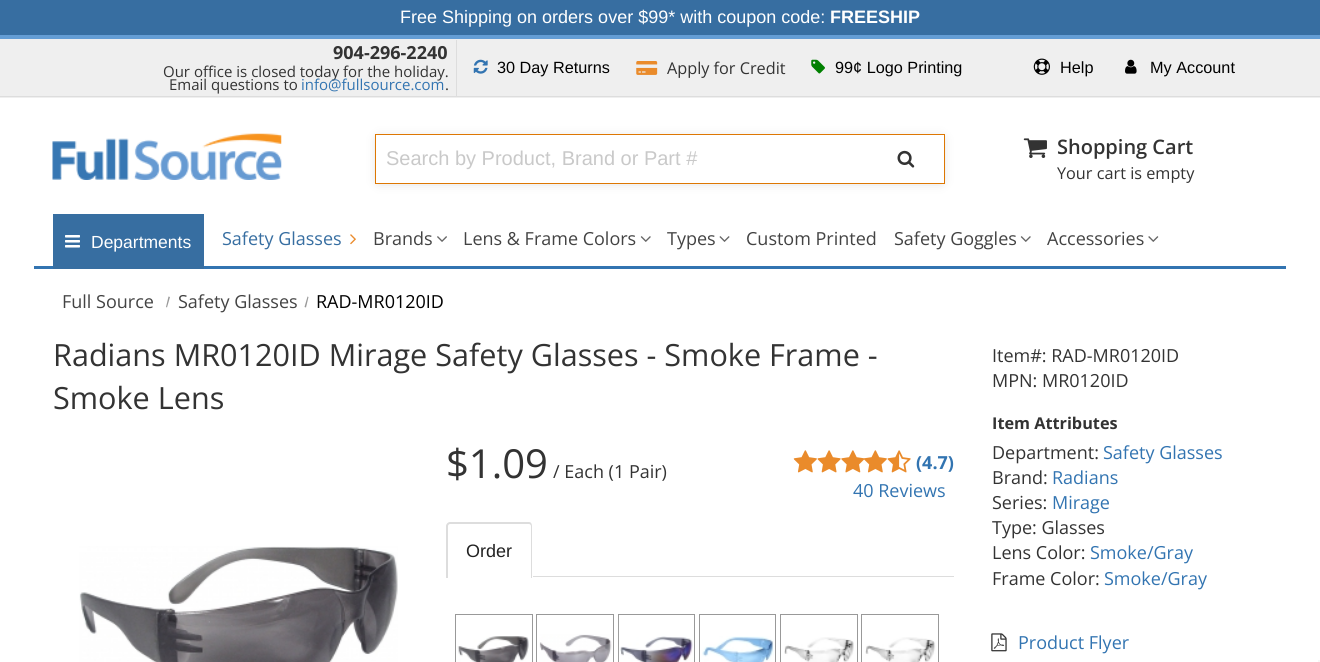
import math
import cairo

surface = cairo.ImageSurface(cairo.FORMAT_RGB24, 1320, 662)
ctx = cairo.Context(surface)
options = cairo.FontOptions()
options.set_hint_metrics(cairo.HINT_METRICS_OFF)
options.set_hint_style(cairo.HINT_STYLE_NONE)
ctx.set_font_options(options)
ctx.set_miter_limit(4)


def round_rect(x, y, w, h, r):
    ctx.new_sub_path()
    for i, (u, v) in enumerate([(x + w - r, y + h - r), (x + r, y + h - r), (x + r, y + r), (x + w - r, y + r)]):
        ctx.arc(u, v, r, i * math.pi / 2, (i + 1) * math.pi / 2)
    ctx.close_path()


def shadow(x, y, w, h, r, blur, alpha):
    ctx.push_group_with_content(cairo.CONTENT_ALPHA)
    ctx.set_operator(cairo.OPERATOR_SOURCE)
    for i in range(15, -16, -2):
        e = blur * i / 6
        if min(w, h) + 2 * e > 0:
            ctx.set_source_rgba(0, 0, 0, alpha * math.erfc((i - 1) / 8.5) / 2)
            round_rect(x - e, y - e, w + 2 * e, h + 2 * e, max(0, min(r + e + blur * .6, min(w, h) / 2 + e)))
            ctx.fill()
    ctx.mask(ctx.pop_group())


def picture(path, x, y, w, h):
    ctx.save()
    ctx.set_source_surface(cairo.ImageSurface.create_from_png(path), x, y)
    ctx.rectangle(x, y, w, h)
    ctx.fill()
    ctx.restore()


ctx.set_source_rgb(1, 1, 1)
ctx.paint()
ctx.set_source_rgb(0.216, 0.431, 0.631)
ctx.rectangle(0, 0, 1320, 35)
ctx.fill()
ctx.select_font_face("Liberation Sans")
ctx.set_font_size(18)
ctx.set_source_rgb(1, 1, 1)
ctx.move_to(400, 23)
ctx.show_text("Free Shipping on orders over $99* with coupon code:")
ctx.select_font_face("Liberation Sans", cairo.FONT_SLANT_NORMAL, cairo.FONT_WEIGHT_BOLD)
ctx.move_to(830, 23)
ctx.show_text("FREESHIP")
ctx.set_source_rgb(0.937, 0.937, 0.937)
ctx.rectangle(0, 39, 1320, 59)
ctx.fill()
ctx.set_source_rgb(0.392, 0.616, 0.831)
ctx.rectangle(0, 35, 1320, 4)
ctx.fill()
ctx.set_source_rgb(0.867, 0.867, 0.867)
ctx.rectangle(0, 96, 1320, 1)
ctx.fill()
ctx.rectangle(456, 40, 1, 56)
ctx.fill()
ctx.select_font_face("Open Sans", cairo.FONT_SLANT_NORMAL, cairo.FONT_WEIGHT_BOLD)
ctx.set_source_rgb(0.2, 0.2, 0.2)
ctx.move_to(333, 59)
ctx.show_text("904-296-2240")
ctx.select_font_face("Open Sans")
ctx.set_font_size(15)
ctx.move_to(163, 77)
ctx.show_text("Our office is closed today for the holiday.")
ctx.move_to(169, 90)
ctx.show_text("Email questions to")
ctx.set_source_rgb(0.196, 0.455, 0.694)
ctx.move_to(301, 90)
ctx.show_text("info@fullsource.com")
ctx.set_source_rgb(0.2, 0.2, 0.2)
ctx.move_to(445, 90)
ctx.show_text(".")
picture("img1.png", 473, 59, 15, 15)
ctx.select_font_face("Liberation Sans")
ctx.set_font_size(16.25)
ctx.set_source_rgb(0, 0, 0)
ctx.move_to(497, 73)
ctx.show_text("30 Day Returns")
picture("img2.png", 636, 61, 22, 14)
ctx.select_font_face("Open Sans")
ctx.set_source_rgb(0.2, 0.2, 0.2)
ctx.move_to(667, 74)
ctx.show_text("Apply for Credit")
picture("img3.png", 811, 59, 14, 15)
ctx.select_font_face("Liberation Sans")
ctx.set_source_rgb(0, 0, 0)
ctx.move_to(835, 73)
ctx.show_text("99¢ Logo Printing")
picture("img4.png", 1033, 58, 17, 17)
ctx.move_to(1060, 73)
ctx.show_text("Help")
picture("img5.png", 1125, 59, 12, 15)
ctx.move_to(1150, 73)
ctx.show_text("My Account")
picture("img6.png", 52, 133, 230, 47)
ctx.save()
ctx.set_fill_rule(cairo.FILL_RULE_EVEN_ODD)
ctx.new_path()
ctx.move_to(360, 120)
ctx.line_to(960, 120)
ctx.line_to(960, 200)
ctx.line_to(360, 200)
ctx.close_path()
ctx.move_to(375, 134)
ctx.line_to(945, 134)
ctx.line_to(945, 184)
ctx.line_to(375, 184)
ctx.close_path()
ctx.clip()
ctx.set_source_rgb(0.8, 0.8, 0.8)
shadow(379, 139, 562, 42, 0, 6, 1)
ctx.restore()
ctx.rectangle(375.5, 134.5, 569, 49)
ctx.set_source_rgb(0.867, 0.467, 0.012)
ctx.set_line_width(1)
ctx.stroke()
ctx.set_font_size(20)
ctx.set_source_rgb(0.788, 0.788, 0.788)
ctx.move_to(386, 165)
ctx.show_text("Search by Product, Brand or Part #")
picture("img7.png", 897, 150, 18, 18)
picture("img8.png", 1023, 138, 24, 20)
ctx.select_font_face("Open Sans SemiBold")
ctx.set_source_rgb(0.2, 0.2, 0.2)
ctx.move_to(1057, 154)
ctx.show_text("Shopping Cart")
ctx.select_font_face("Open Sans")
ctx.set_font_size(16.25)
ctx.move_to(1057, 179)
ctx.show_text("Your cart is empty")
ctx.set_source_rgb(0.196, 0.455, 0.694)
ctx.rectangle(34, 266, 1252, 3)
ctx.fill()
ctx.set_source_rgb(0.216, 0.431, 0.631)
ctx.rectangle(53, 214, 151, 55)
ctx.fill()
picture("img9.png", 65, 235, 15, 13)
ctx.select_font_face("Liberation Sans")
ctx.set_font_size(17.5)
ctx.set_source_rgb(1, 1, 1)
ctx.move_to(91, 248)
ctx.show_text("Departments")
ctx.select_font_face("Open Sans")
ctx.set_font_size(18)
ctx.set_source_rgb(0.216, 0.431, 0.631)
ctx.move_to(222, 245)
ctx.show_text("Safety Glasses")
picture("img10.png", 350, 234, 6, 11)
ctx.set_source_rgb(0.263, 0.263, 0.263)
ctx.move_to(373, 245)
ctx.show_text("Brands")
picture("img11.png", 437, 236, 10, 6)
ctx.move_to(463, 245)
ctx.show_text("Lens & Frame Colors")
picture("img12.png", 640, 236, 11, 6)
ctx.move_to(667, 245)
ctx.show_text("Types")
picture("img13.png", 719, 236, 11, 6)
ctx.move_to(746, 245)
ctx.show_text("Custom Printed")
ctx.move_to(894, 245)
ctx.show_text("Safety Goggles")
picture("img12.png", 1020, 236, 11, 6)
ctx.move_to(1047, 245)
ctx.show_text("Accessories")
picture("img14.png", 1148, 236, 11, 6)
ctx.move_to(62, 308)
ctx.show_text("Full Source")
ctx.set_source_rgb(0.6, 0.6, 0.6)
ctx.new_path()
ctx.move_to(168.5, 296.5)
ctx.line_to(170, 297)
ctx.line_to(167, 307.5)
ctx.line_to(166, 307)
ctx.close_path()
ctx.fill()
ctx.set_source_rgb(0.263, 0.263, 0.263)
ctx.move_to(178, 308)
ctx.show_text("Safety Glasses")
ctx.set_source_rgb(0.6, 0.6, 0.6)
ctx.new_path()
ctx.move_to(307.5, 296.5)
ctx.line_to(308.5, 297)
ctx.line_to(306, 307.5)
ctx.line_to(304.5, 307)
ctx.close_path()
ctx.fill()
ctx.set_source_rgb(0, 0, 0)
ctx.move_to(316, 308)
ctx.show_text("RAD-MR0120ID")
ctx.set_font_size(30.6)
ctx.set_source_rgb(0.2, 0.2, 0.2)
ctx.move_to(53, 366)
ctx.show_text("Radians MR0120ID Mirage Safety Glasses - Smoke Frame -")
ctx.move_to(53, 409)
ctx.show_text("Smoke Lens")
ctx.set_font_size(40)
ctx.move_to(446, 478)
ctx.show_text("$1.09")
ctx.set_font_size(18)
ctx.move_to(553, 478)
ctx.show_text("/ Each (1 Pair)")
picture("img15.png", 793, 450, 24, 23)
picture("img16.png", 817, 450, 24, 23)
picture("img17.png", 841, 450, 24, 23)
picture("img18.png", 864, 450, 23, 23)
picture("img19.png", 887, 450, 24, 23)
ctx.select_font_face("Open Sans", cairo.FONT_SLANT_NORMAL, cairo.FONT_WEIGHT_BOLD)
ctx.set_source_rgb(0.196, 0.455, 0.694)
ctx.move_to(916, 469)
ctx.show_text("(4.7)")
ctx.select_font_face("Open Sans")
ctx.move_to(853, 497)
ctx.show_text("40 Reviews")
ctx.set_source_rgb(0.867, 0.867, 0.867)
ctx.rectangle(533, 576, 421, 1)
ctx.fill()
ctx.set_fill_rule(cairo.FILL_RULE_EVEN_ODD)
ctx.new_path()
ctx.move_to(450, 522)
ctx.line_to(529, 522)
ctx.curve_to(531, 522, 532, 524, 532, 526)
ctx.line_to(532, 578)
ctx.line_to(446, 578)
ctx.line_to(446, 526)
ctx.curve_to(446, 524, 448, 522, 450, 522)
ctx.close_path()
ctx.move_to(450, 524)
ctx.line_to(529, 524)
ctx.curve_to(530, 524, 531, 525, 531, 526)
ctx.line_to(531, 578)
ctx.line_to(448, 578)
ctx.line_to(448, 526)
ctx.curve_to(448, 525, 449, 524, 450, 524)
ctx.close_path()
ctx.fill()
ctx.select_font_face("Liberation Sans")
ctx.set_source_rgb(0.133, 0.133, 0.133)
ctx.move_to(466, 557)
ctx.show_text("Order")
ctx.rectangle(455.5, 614.5, 77, 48)
ctx.set_source_rgb(0.6, 0.6, 0.6)
ctx.stroke()
picture("img20.png", 457, 636, 72, 26)
ctx.rectangle(536.5, 614.5, 77, 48)
ctx.stroke()
picture("img21.png", 539, 634, 73, 28)
ctx.rectangle(618.5, 614.5, 76, 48)
ctx.stroke()
picture("img22.png", 618, 615, 75, 47)
ctx.rectangle(699.5, 614.5, 76, 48)
ctx.stroke()
picture("img23.png", 702, 636, 72, 26)
ctx.rectangle(780.5, 614.5, 77, 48)
ctx.stroke()
picture("img24.png", 784, 637, 70, 25)
ctx.rectangle(861.5, 614.5, 77, 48)
ctx.stroke()
picture("img25.png", 865, 637, 71, 25)
picture("img26.png", 79, 546, 319, 116)
ctx.select_font_face("Open Sans")
ctx.set_source_rgb(0.2, 0.2, 0.2)
ctx.move_to(992, 362)
ctx.show_text("Item#: RAD-MR0120ID")
ctx.move_to(992, 387)
ctx.show_text("MPN: MR0120ID")
ctx.select_font_face("Open Sans", cairo.FONT_SLANT_NORMAL, cairo.FONT_WEIGHT_BOLD)
ctx.set_font_size(16.25)
ctx.move_to(992, 429)
ctx.show_text("Item Attributes")
ctx.select_font_face("Open Sans")
ctx.set_font_size(18)
ctx.move_to(992, 459)
ctx.show_text("Department:")
ctx.set_source_rgb(0.196, 0.455, 0.694)
ctx.move_to(1103, 459)
ctx.show_text("Safety Glasses")
ctx.set_source_rgb(0.2, 0.2, 0.2)
ctx.move_to(992, 484)
ctx.show_text("Brand:")
ctx.set_source_rgb(0.196, 0.455, 0.694)
ctx.move_to(1052, 484)
ctx.show_text("Radians")
ctx.set_source_rgb(0.2, 0.2, 0.2)
ctx.move_to(992, 509)
ctx.show_text("Series:")
ctx.set_source_rgb(0.196, 0.455, 0.694)
ctx.move_to(1052, 509)
ctx.show_text("Mirage")
ctx.set_source_rgb(0.2, 0.2, 0.2)
ctx.move_to(992, 534)
ctx.show_text("Type: Glasses")
ctx.move_to(992, 559)
ctx.show_text("Lens Color:")
ctx.set_source_rgb(0.196, 0.455, 0.694)
ctx.move_to(1090, 559)
ctx.show_text("Smoke/Gray")
ctx.set_source_rgb(0.2, 0.2, 0.2)
ctx.move_to(992, 585)
ctx.show_text("Frame Color:")
ctx.set_source_rgb(0.196, 0.455, 0.694)
ctx.move_to(1104, 585)
ctx.show_text("Smoke/Gray")
picture("img27.png", 991, 633, 16, 19)
ctx.move_to(1018, 649)
ctx.show_text("Product Flyer")
ctx.set_source_rgb(0.961, 0.961, 0.961)
ctx.rectangle(1318, 660, 2, 2)
ctx.fill()
surface.write_to_png("page.png")
